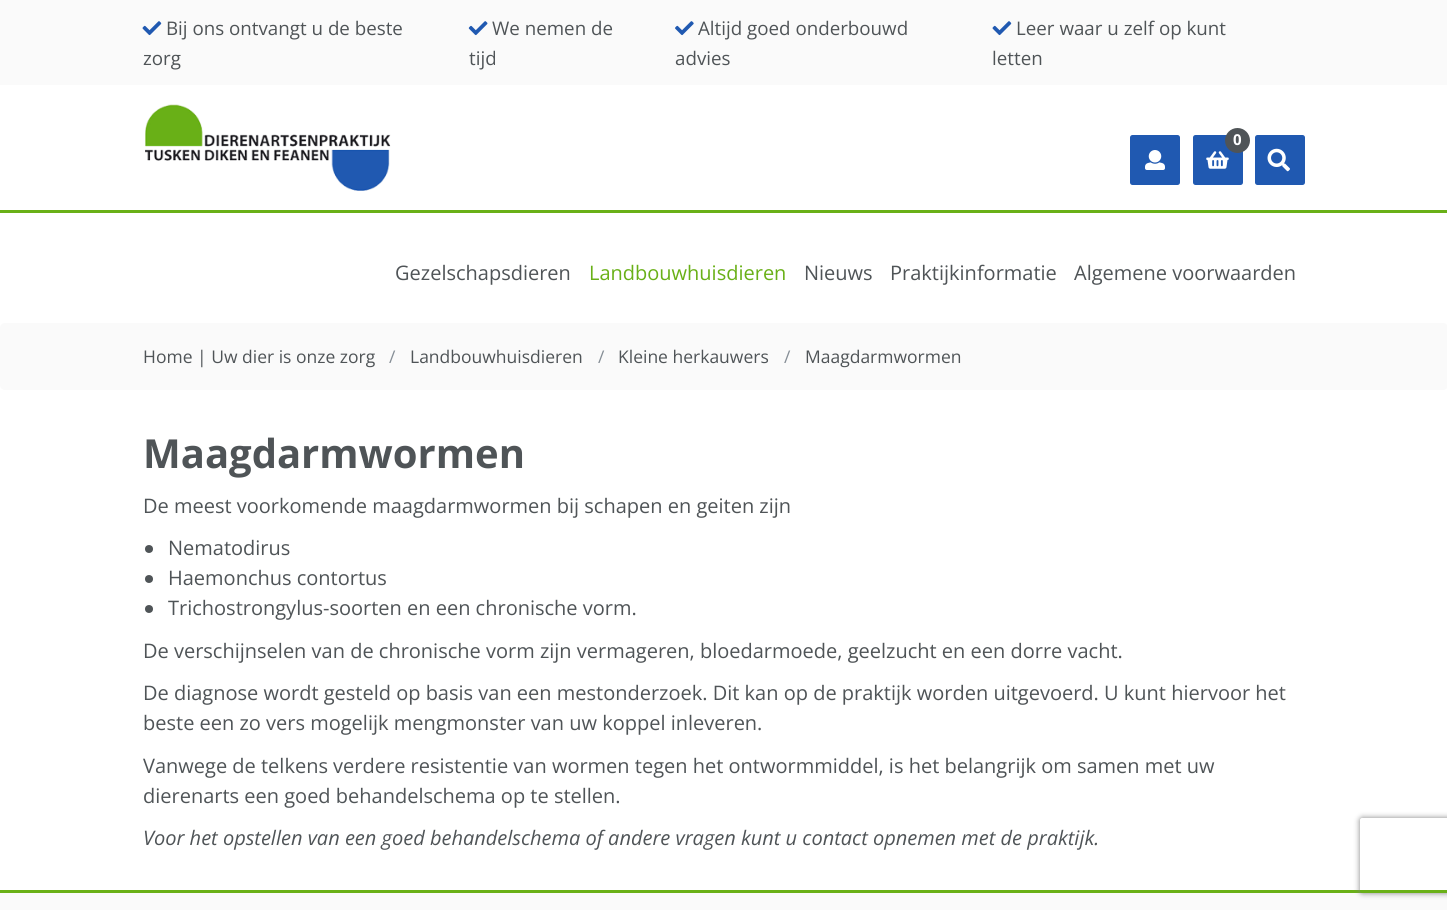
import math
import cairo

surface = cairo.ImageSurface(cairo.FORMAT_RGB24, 1447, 910)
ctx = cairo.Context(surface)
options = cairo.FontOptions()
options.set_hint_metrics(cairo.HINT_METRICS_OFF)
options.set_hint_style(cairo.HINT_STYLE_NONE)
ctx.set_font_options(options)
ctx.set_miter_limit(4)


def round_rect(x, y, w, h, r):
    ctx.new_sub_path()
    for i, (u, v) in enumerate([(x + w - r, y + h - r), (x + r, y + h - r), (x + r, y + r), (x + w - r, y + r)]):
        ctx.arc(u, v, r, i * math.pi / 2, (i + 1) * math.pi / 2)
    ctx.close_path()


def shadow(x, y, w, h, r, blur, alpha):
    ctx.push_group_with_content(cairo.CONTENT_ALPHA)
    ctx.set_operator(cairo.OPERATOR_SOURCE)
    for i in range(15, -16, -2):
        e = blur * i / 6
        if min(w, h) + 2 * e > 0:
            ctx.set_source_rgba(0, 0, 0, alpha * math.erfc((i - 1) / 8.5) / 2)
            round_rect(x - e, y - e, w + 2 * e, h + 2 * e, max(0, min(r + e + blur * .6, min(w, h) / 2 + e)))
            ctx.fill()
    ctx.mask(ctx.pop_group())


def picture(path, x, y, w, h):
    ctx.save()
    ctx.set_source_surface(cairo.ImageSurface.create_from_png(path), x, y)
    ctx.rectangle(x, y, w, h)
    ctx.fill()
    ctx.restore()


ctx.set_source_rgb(1, 1, 1)
ctx.paint()
ctx.set_source_rgb(0.98, 0.98, 0.98)
ctx.rectangle(0, 0, 1447, 85)
ctx.fill()
picture("img1.png", 142, 21, 20, 15)
ctx.select_font_face("Open Sans")
ctx.set_font_size(18.75)
ctx.set_source_rgb(0.31, 0.329, 0.341)
ctx.move_to(166, 35)
ctx.show_text("Bij ons ontvangt u de beste")
ctx.move_to(143, 65)
ctx.show_text("zorg")
picture("img2.png", 468, 21, 20, 15)
ctx.move_to(492, 35)
ctx.show_text("We nemen de")
ctx.move_to(469, 65)
ctx.show_text("tijd")
picture("img3.png", 675, 21, 19, 15)
ctx.move_to(698, 35)
ctx.show_text("Altijd goed onderbouwd")
ctx.move_to(675, 65)
ctx.show_text("advies")
picture("img1.png", 992, 21, 20, 15)
ctx.move_to(1016, 35)
ctx.show_text("Leer waar u zelf op kunt")
ctx.move_to(992, 65)
ctx.show_text("letten")
ctx.set_source_rgb(0.412, 0.69, 0.09)
ctx.rectangle(0, 210, 1447, 3)
ctx.fill()
picture("img4.png", 145, 104, 246, 87)
ctx.set_source_rgb(0.125, 0.349, 0.694)
round_rect(1130, 135, 50, 50, 2.5)
ctx.fill()
picture("img5.png", 1145, 150, 20, 20)
round_rect(1193, 135, 50, 50, 2.5)
ctx.fill()
picture("img6.png", 1206, 151, 23, 18)
ctx.set_source_rgb(0.31, 0.329, 0.341)
ctx.arc(1237.5, 140.5, 12.5, 0, 2 * math.pi)
ctx.fill()
ctx.select_font_face("Open Sans", cairo.FONT_SLANT_NORMAL, cairo.FONT_WEIGHT_BOLD)
ctx.set_font_size(15)
ctx.set_source_rgb(1, 1, 1)
ctx.move_to(1233, 145)
ctx.show_text("0")
ctx.set_source_rgb(0.125, 0.349, 0.694)
round_rect(1255, 135, 50, 50, 2.5)
ctx.fill()
picture("img7.png", 1267, 148, 23, 24)
ctx.select_font_face("Open Sans")
ctx.set_font_size(20)
ctx.set_source_rgb(0.31, 0.329, 0.341)
ctx.move_to(395, 280)
ctx.show_text("Gezelschapsdieren")
ctx.set_source_rgb(0.412, 0.69, 0.09)
ctx.move_to(589, 280)
ctx.show_text("Landbouwhuisdieren")
ctx.set_source_rgb(0.31, 0.329, 0.341)
ctx.move_to(804, 280)
ctx.show_text("Nieuws")
ctx.move_to(890, 280)
ctx.show_text("Praktijkinformatie")
ctx.move_to(1074, 280)
ctx.show_text("Algemene voorwaarden")
ctx.set_source_rgb(0.98, 0.98, 0.98)
round_rect(0, 323, 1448, 67, 5)
ctx.fill()
ctx.set_font_size(17.5)
ctx.set_source_rgb(0.31, 0.329, 0.341)
ctx.move_to(143, 363)
ctx.show_text("Home | Uw dier is onze zorg")
ctx.set_source_rgb(0.525, 0.557, 0.588)
ctx.move_to(389, 363)
ctx.show_text("/")
ctx.set_source_rgb(0.31, 0.329, 0.341)
ctx.move_to(410, 363)
ctx.show_text("Landbouwhuisdieren")
ctx.set_source_rgb(0.525, 0.557, 0.588)
ctx.move_to(598, 363)
ctx.show_text("/")
ctx.set_source_rgb(0.31, 0.329, 0.341)
ctx.move_to(618, 363)
ctx.show_text("Kleine herkauwers")
ctx.set_source_rgb(0.525, 0.557, 0.588)
ctx.move_to(784, 363)
ctx.show_text("/")
ctx.set_source_rgb(0.31, 0.329, 0.341)
ctx.move_to(805, 363)
ctx.show_text("Maagdarmwormen")
ctx.select_font_face("Open Sans", cairo.FONT_SLANT_NORMAL, cairo.FONT_WEIGHT_BOLD)
ctx.set_font_size(40)
ctx.move_to(143, 468)
ctx.show_text("Maagdarmwormen")
ctx.select_font_face("Open Sans")
ctx.set_font_size(20)
ctx.move_to(143, 513)
ctx.show_text("De meest voorkomende maagdarmwormen bij schapen en geiten zijn")
ctx.new_path()
ctx.arc(149, 549, 4, 0, 2 * math.pi)
ctx.fill()
ctx.move_to(168, 555)
ctx.show_text("Nematodirus")
ctx.new_path()
ctx.arc(149, 579, 4, 0, 2 * math.pi)
ctx.fill()
ctx.move_to(168, 585)
ctx.show_text("Haemonchus contortus")
ctx.new_path()
ctx.arc(149, 609, 4, 0, 2 * math.pi)
ctx.fill()
ctx.move_to(168, 615)
ctx.show_text("Trichostrongylus-soorten en een chronische vorm.")
ctx.move_to(143, 658)
ctx.show_text("De verschijnselen van de chronische vorm zijn vermageren, bloedarmoede, geelzucht en een dorre vacht.")
ctx.move_to(143, 700)
ctx.show_text("De diagnose wordt gesteld op basis van een mestonderzoek. Dit kan op de praktijk worden uitgevoerd. U kunt hiervoor het")
ctx.move_to(143, 730)
ctx.show_text("beste een zo vers mogelijk mengmonster van uw koppel inleveren.")
ctx.move_to(143, 773)
ctx.show_text("Vanwege de telkens verdere resistentie van wormen tegen het ontwormmiddel, is het belangrijk om samen met uw")
ctx.move_to(143, 803)
ctx.show_text("dierenarts een goed behandelschema op te stellen.")
ctx.select_font_face("Open Sans", cairo.FONT_SLANT_ITALIC)
ctx.move_to(143, 845)
ctx.show_text("Voor het opstellen van een goed behandelschema of andere vragen kunt u contact opnemen met de praktijk.")
ctx.set_source_rgb(0.412, 0.69, 0.09)
ctx.rectangle(0, 890, 1447, 3)
ctx.fill()
ctx.set_source_rgb(0.98, 0.98, 0.98)
ctx.rectangle(0, 893, 1447, 17)
ctx.fill()
ctx.save()
ctx.set_fill_rule(cairo.FILL_RULE_EVEN_ODD)
ctx.new_path()
ctx.move_to(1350, 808)
ctx.line_to(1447, 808)
ctx.line_to(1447, 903)
ctx.line_to(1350, 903)
ctx.close_path()
ctx.move_to(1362.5, 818)
ctx.line_to(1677.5, 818)
ctx.curve_to(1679, 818, 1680, 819, 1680, 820.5)
ctx.line_to(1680, 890.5)
ctx.curve_to(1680, 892, 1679, 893, 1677.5, 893)
ctx.line_to(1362.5, 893)
ctx.curve_to(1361, 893, 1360, 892, 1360, 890.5)
ctx.line_to(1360, 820.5)
ctx.curve_to(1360, 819, 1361, 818, 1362.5, 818)
ctx.close_path()
ctx.clip()
ctx.set_source_rgb(0.502, 0.502, 0.502)
shadow(1360, 818, 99, 75, 2.5, 3, 1)
ctx.restore()
surface.write_to_png("page.png")
